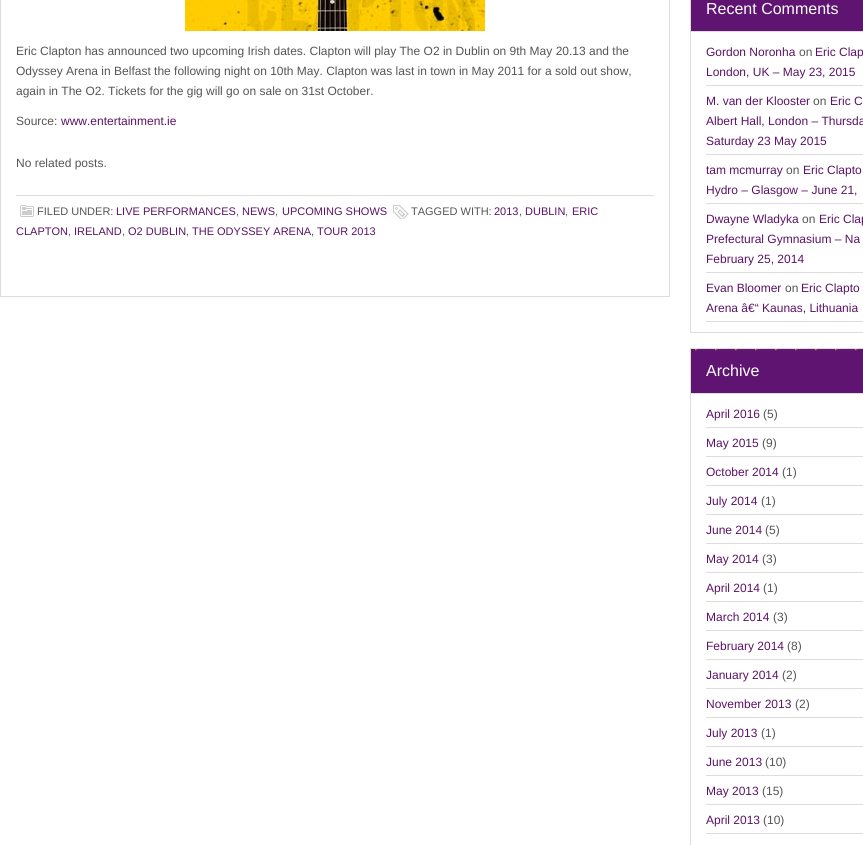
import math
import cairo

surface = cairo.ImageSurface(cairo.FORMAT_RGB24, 863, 845)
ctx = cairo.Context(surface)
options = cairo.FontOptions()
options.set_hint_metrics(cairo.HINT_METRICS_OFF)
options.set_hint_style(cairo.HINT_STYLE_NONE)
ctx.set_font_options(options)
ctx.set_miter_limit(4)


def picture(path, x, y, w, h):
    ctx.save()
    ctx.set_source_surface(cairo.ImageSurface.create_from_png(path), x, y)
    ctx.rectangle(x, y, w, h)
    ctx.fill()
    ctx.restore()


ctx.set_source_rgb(1, 1, 1)
ctx.paint()
ctx.rectangle(0.5, -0.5, 669, 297)
ctx.set_source_rgb(0.867, 0.867, 0.867)
ctx.set_line_width(1)
ctx.stroke()
picture("img1.png", 185, 0, 300, 31)
ctx.select_font_face("Liberation Sans")
ctx.set_font_size(12)
ctx.set_source_rgb(0.333, 0.333, 0.333)
ctx.move_to(16, 55)
ctx.show_text("Eric Clapton has announced two upcoming Irish dates. Clapton will play The O2 in Dublin on 9th May 20.13 and the")
ctx.move_to(16, 75)
ctx.show_text("Odyssey Arena in Belfast the following night on 10th May. Clapton was last in town in May 2011 for a sold out show,")
ctx.move_to(16, 95)
ctx.show_text("again in The O2. Tickets for the gig will go on sale on 31st October.")
ctx.move_to(16, 125)
ctx.show_text("Source:")
ctx.set_source_rgb(0.361, 0.071, 0.404)
ctx.move_to(61, 125)
ctx.show_text("www.entertainment.ie")
ctx.set_source_rgb(0.333, 0.333, 0.333)
ctx.move_to(16, 167)
ctx.show_text("No related posts.")
ctx.set_source_rgb(0.867, 0.867, 0.867)
ctx.rectangle(16, 195, 638, 1)
ctx.fill()
picture("img2.png", 20, 205, 14, 12)
ctx.set_font_size(11)
ctx.set_source_rgb(0.333, 0.333, 0.333)
ctx.move_to(37, 215)
ctx.show_text("FILED UNDER:")
ctx.set_source_rgb(0.361, 0.071, 0.404)
ctx.move_to(116, 215)
ctx.show_text("LIVE PERFORMANCES")
ctx.set_source_rgb(0.333, 0.333, 0.333)
ctx.move_to(236, 215)
ctx.show_text(",")
ctx.set_source_rgb(0.361, 0.071, 0.404)
ctx.move_to(242, 215)
ctx.show_text("NEWS")
ctx.set_source_rgb(0.333, 0.333, 0.333)
ctx.move_to(275, 215)
ctx.show_text(",")
ctx.set_source_rgb(0.361, 0.071, 0.404)
ctx.move_to(282, 215)
ctx.show_text("UPCOMING SHOWS")
picture("img3.png", 393, 205, 16, 14)
ctx.set_source_rgb(0.333, 0.333, 0.333)
ctx.move_to(411, 215)
ctx.show_text("TAGGED WITH:")
ctx.set_source_rgb(0.361, 0.071, 0.404)
ctx.move_to(494, 215)
ctx.show_text("2013")
ctx.set_source_rgb(0.333, 0.333, 0.333)
ctx.move_to(519, 215)
ctx.show_text(",")
ctx.set_source_rgb(0.361, 0.071, 0.404)
ctx.move_to(525, 215)
ctx.show_text("DUBLIN")
ctx.set_source_rgb(0.333, 0.333, 0.333)
ctx.move_to(565, 215)
ctx.show_text(",")
ctx.set_source_rgb(0.361, 0.071, 0.404)
ctx.move_to(572, 215)
ctx.show_text("ERIC")
ctx.move_to(16, 235)
ctx.show_text("CLAPTON")
ctx.set_source_rgb(0.333, 0.333, 0.333)
ctx.move_to(68, 235)
ctx.show_text(",")
ctx.set_source_rgb(0.361, 0.071, 0.404)
ctx.move_to(74, 235)
ctx.show_text("IRELAND")
ctx.set_source_rgb(0.333, 0.333, 0.333)
ctx.move_to(122, 235)
ctx.show_text(",")
ctx.set_source_rgb(0.361, 0.071, 0.404)
ctx.move_to(128, 235)
ctx.show_text("O2 DUBLIN")
ctx.set_source_rgb(0.333, 0.333, 0.333)
ctx.move_to(186, 235)
ctx.show_text(",")
ctx.set_source_rgb(0.361, 0.071, 0.404)
ctx.move_to(192, 235)
ctx.show_text("THE ODYSSEY ARENA")
ctx.set_source_rgb(0.333, 0.333, 0.333)
ctx.move_to(311, 235)
ctx.show_text(",")
ctx.set_source_rgb(0.361, 0.071, 0.404)
ctx.move_to(317, 235)
ctx.show_text("TOUR 2013")
ctx.rectangle(690.5, -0.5, 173, 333)
ctx.set_source_rgb(0.867, 0.867, 0.867)
ctx.stroke()
ctx.set_source_rgb(0.373, 0.082, 0.443)
ctx.rectangle(691, 0, 172, 31)
ctx.fill()
ctx.set_source_rgb(0.867, 0.867, 0.867)
ctx.rectangle(691, 31, 172, 1)
ctx.fill()
ctx.set_font_size(16)
ctx.set_source_rgb(1, 1, 1)
ctx.move_to(706, 14)
ctx.show_text("Recent Comments")
ctx.set_source_rgb(0.867, 0.867, 0.867)
ctx.rectangle(706, 85, 157, 1)
ctx.fill()
ctx.set_font_size(12)
ctx.set_source_rgb(0.361, 0.071, 0.404)
ctx.move_to(706, 56)
ctx.show_text("Gordon Noronha")
ctx.set_source_rgb(0.333, 0.333, 0.333)
ctx.move_to(799, 56)
ctx.show_text("on")
ctx.set_source_rgb(0.361, 0.071, 0.404)
ctx.move_to(815, 56)
ctx.show_text("Eric Clap")
ctx.move_to(706, 76)
ctx.show_text("London, UK – May 23, 2015")
ctx.set_source_rgb(0.867, 0.867, 0.867)
ctx.rectangle(706, 154, 157, 1)
ctx.fill()
ctx.set_source_rgb(0.361, 0.071, 0.404)
ctx.move_to(706, 105)
ctx.show_text("M. van der Klooster")
ctx.set_source_rgb(0.333, 0.333, 0.333)
ctx.move_to(813, 105)
ctx.show_text("on")
ctx.set_source_rgb(0.361, 0.071, 0.404)
ctx.move_to(830, 105)
ctx.show_text("Eric C")
ctx.move_to(706, 125)
ctx.show_text("Albert Hall, London – Thursda")
ctx.move_to(706, 145)
ctx.show_text("Saturday 23 May 2015")
ctx.set_source_rgb(0.867, 0.867, 0.867)
ctx.rectangle(706, 203, 157, 1)
ctx.fill()
ctx.set_source_rgb(0.361, 0.071, 0.404)
ctx.move_to(706, 174)
ctx.show_text("tam mcmurray")
ctx.set_source_rgb(0.333, 0.333, 0.333)
ctx.move_to(786, 174)
ctx.show_text("on")
ctx.set_source_rgb(0.361, 0.071, 0.404)
ctx.move_to(803, 174)
ctx.show_text("Eric Clapto")
ctx.move_to(706, 194)
ctx.show_text("Hydro – Glasgow – June 21,")
ctx.set_source_rgb(0.867, 0.867, 0.867)
ctx.rectangle(706, 272, 157, 1)
ctx.fill()
ctx.set_source_rgb(0.361, 0.071, 0.404)
ctx.move_to(706, 223)
ctx.show_text("Dwayne Wladyka")
ctx.set_source_rgb(0.333, 0.333, 0.333)
ctx.move_to(802, 223)
ctx.show_text("on")
ctx.set_source_rgb(0.361, 0.071, 0.404)
ctx.move_to(819, 223)
ctx.show_text("Eric Clap")
ctx.move_to(706, 243)
ctx.show_text("Prefectural Gymnasium – Na")
ctx.move_to(706, 263)
ctx.show_text("February 25, 2014")
ctx.set_source_rgb(0.867, 0.867, 0.867)
ctx.rectangle(706, 321, 157, 1)
ctx.fill()
ctx.set_source_rgb(0.361, 0.071, 0.404)
ctx.move_to(706, 292)
ctx.show_text("Evan Bloomer")
ctx.set_source_rgb(0.333, 0.333, 0.333)
ctx.move_to(785, 292)
ctx.show_text("on")
ctx.set_source_rgb(0.361, 0.071, 0.404)
ctx.move_to(801, 292)
ctx.show_text("Eric Clapto")
ctx.move_to(706, 312)
ctx.show_text("Arena â€“ Kaunas, Lithuania")
ctx.rectangle(690.5, 348.5, 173, 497)
ctx.set_source_rgb(0.867, 0.867, 0.867)
ctx.stroke()
ctx.set_source_rgb(0.373, 0.082, 0.443)
ctx.rectangle(691, 349, 172, 44)
ctx.fill()
picture("img4.png", 695, 349, 163, 2)
ctx.set_source_rgb(0.867, 0.867, 0.867)
ctx.rectangle(691, 393, 172, 1)
ctx.fill()
ctx.set_font_size(16)
ctx.set_source_rgb(1, 1, 1)
ctx.move_to(706, 376)
ctx.show_text("Archive")
ctx.set_source_rgb(0.867, 0.867, 0.867)
ctx.rectangle(706, 427, 157, 1)
ctx.fill()
ctx.set_font_size(12)
ctx.set_source_rgb(0.361, 0.071, 0.404)
ctx.move_to(706, 418)
ctx.show_text("April 2016")
ctx.set_source_rgb(0.333, 0.333, 0.333)
ctx.move_to(763, 418)
ctx.show_text("(5)")
ctx.set_source_rgb(0.867, 0.867, 0.867)
ctx.rectangle(706, 456, 157, 1)
ctx.fill()
ctx.set_source_rgb(0.361, 0.071, 0.404)
ctx.move_to(706, 447)
ctx.show_text("May 2015")
ctx.set_source_rgb(0.333, 0.333, 0.333)
ctx.move_to(762, 447)
ctx.show_text("(9)")
ctx.set_source_rgb(0.867, 0.867, 0.867)
ctx.rectangle(706, 485, 157, 1)
ctx.fill()
ctx.set_source_rgb(0.361, 0.071, 0.404)
ctx.move_to(706, 476)
ctx.show_text("October 2014")
ctx.set_source_rgb(0.333, 0.333, 0.333)
ctx.move_to(782, 476)
ctx.show_text("(1)")
ctx.set_source_rgb(0.867, 0.867, 0.867)
ctx.rectangle(706, 514, 157, 1)
ctx.fill()
ctx.set_source_rgb(0.361, 0.071, 0.404)
ctx.move_to(706, 505)
ctx.show_text("July 2014")
ctx.set_source_rgb(0.333, 0.333, 0.333)
ctx.move_to(761, 505)
ctx.show_text("(1)")
ctx.set_source_rgb(0.867, 0.867, 0.867)
ctx.rectangle(706, 543, 157, 1)
ctx.fill()
ctx.set_source_rgb(0.361, 0.071, 0.404)
ctx.move_to(706, 534)
ctx.show_text("June 2014")
ctx.set_source_rgb(0.333, 0.333, 0.333)
ctx.move_to(765, 534)
ctx.show_text("(5)")
ctx.set_source_rgb(0.867, 0.867, 0.867)
ctx.rectangle(706, 572, 157, 1)
ctx.fill()
ctx.set_source_rgb(0.361, 0.071, 0.404)
ctx.move_to(706, 563)
ctx.show_text("May 2014")
ctx.set_source_rgb(0.333, 0.333, 0.333)
ctx.move_to(762, 563)
ctx.show_text("(3)")
ctx.set_source_rgb(0.867, 0.867, 0.867)
ctx.rectangle(706, 601, 157, 1)
ctx.fill()
ctx.set_source_rgb(0.361, 0.071, 0.404)
ctx.move_to(706, 592)
ctx.show_text("April 2014")
ctx.set_source_rgb(0.333, 0.333, 0.333)
ctx.move_to(763, 592)
ctx.show_text("(1)")
ctx.set_source_rgb(0.867, 0.867, 0.867)
ctx.rectangle(706, 630, 157, 1)
ctx.fill()
ctx.set_source_rgb(0.361, 0.071, 0.404)
ctx.move_to(706, 621)
ctx.show_text("March 2014")
ctx.set_source_rgb(0.333, 0.333, 0.333)
ctx.move_to(773, 621)
ctx.show_text("(3)")
ctx.set_source_rgb(0.867, 0.867, 0.867)
ctx.rectangle(706, 659, 157, 1)
ctx.fill()
ctx.set_source_rgb(0.361, 0.071, 0.404)
ctx.move_to(706, 650)
ctx.show_text("February 2014")
ctx.set_source_rgb(0.333, 0.333, 0.333)
ctx.move_to(787, 650)
ctx.show_text("(8)")
ctx.set_source_rgb(0.867, 0.867, 0.867)
ctx.rectangle(706, 688, 157, 1)
ctx.fill()
ctx.set_source_rgb(0.361, 0.071, 0.404)
ctx.move_to(706, 679)
ctx.show_text("January 2014")
ctx.set_source_rgb(0.333, 0.333, 0.333)
ctx.move_to(782, 679)
ctx.show_text("(2)")
ctx.set_source_rgb(0.867, 0.867, 0.867)
ctx.rectangle(706, 717, 157, 1)
ctx.fill()
ctx.set_source_rgb(0.361, 0.071, 0.404)
ctx.move_to(706, 708)
ctx.show_text("November 2013")
ctx.set_source_rgb(0.333, 0.333, 0.333)
ctx.move_to(795, 708)
ctx.show_text("(2)")
ctx.set_source_rgb(0.867, 0.867, 0.867)
ctx.rectangle(706, 746, 157, 1)
ctx.fill()
ctx.set_source_rgb(0.361, 0.071, 0.404)
ctx.move_to(706, 737)
ctx.show_text("July 2013")
ctx.set_source_rgb(0.333, 0.333, 0.333)
ctx.move_to(761, 737)
ctx.show_text("(1)")
ctx.set_source_rgb(0.867, 0.867, 0.867)
ctx.rectangle(706, 775, 157, 1)
ctx.fill()
ctx.set_source_rgb(0.361, 0.071, 0.404)
ctx.move_to(706, 766)
ctx.show_text("June 2013")
ctx.set_source_rgb(0.333, 0.333, 0.333)
ctx.move_to(765, 766)
ctx.show_text("(10)")
ctx.set_source_rgb(0.867, 0.867, 0.867)
ctx.rectangle(706, 804, 157, 1)
ctx.fill()
ctx.set_source_rgb(0.361, 0.071, 0.404)
ctx.move_to(706, 795)
ctx.show_text("May 2013")
ctx.set_source_rgb(0.333, 0.333, 0.333)
ctx.move_to(762, 795)
ctx.show_text("(15)")
ctx.set_source_rgb(0.867, 0.867, 0.867)
ctx.rectangle(706, 833, 157, 1)
ctx.fill()
ctx.set_source_rgb(0.361, 0.071, 0.404)
ctx.move_to(706, 824)
ctx.show_text("April 2013")
ctx.set_source_rgb(0.333, 0.333, 0.333)
ctx.move_to(763, 824)
ctx.show_text("(10)")
surface.write_to_png("page.png")
